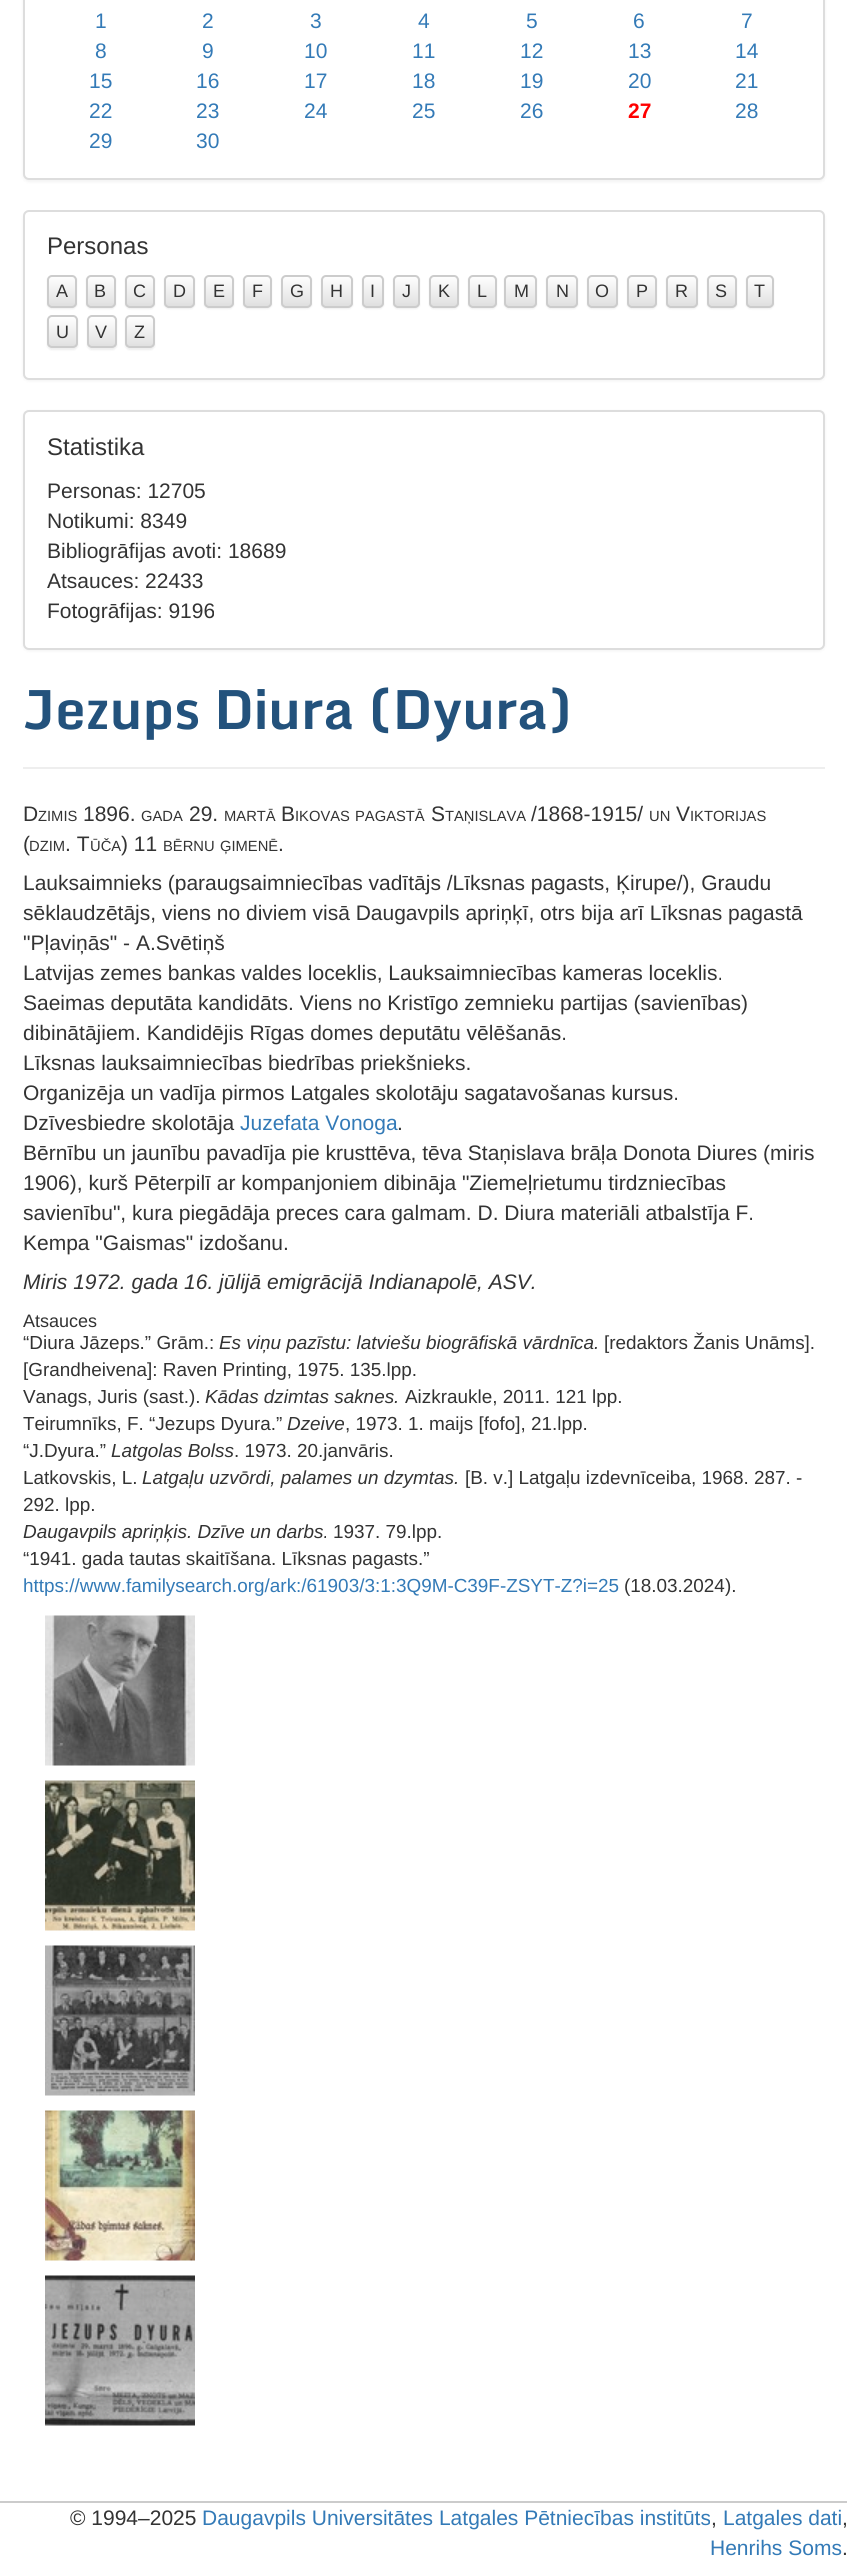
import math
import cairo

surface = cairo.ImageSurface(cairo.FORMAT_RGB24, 847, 2567)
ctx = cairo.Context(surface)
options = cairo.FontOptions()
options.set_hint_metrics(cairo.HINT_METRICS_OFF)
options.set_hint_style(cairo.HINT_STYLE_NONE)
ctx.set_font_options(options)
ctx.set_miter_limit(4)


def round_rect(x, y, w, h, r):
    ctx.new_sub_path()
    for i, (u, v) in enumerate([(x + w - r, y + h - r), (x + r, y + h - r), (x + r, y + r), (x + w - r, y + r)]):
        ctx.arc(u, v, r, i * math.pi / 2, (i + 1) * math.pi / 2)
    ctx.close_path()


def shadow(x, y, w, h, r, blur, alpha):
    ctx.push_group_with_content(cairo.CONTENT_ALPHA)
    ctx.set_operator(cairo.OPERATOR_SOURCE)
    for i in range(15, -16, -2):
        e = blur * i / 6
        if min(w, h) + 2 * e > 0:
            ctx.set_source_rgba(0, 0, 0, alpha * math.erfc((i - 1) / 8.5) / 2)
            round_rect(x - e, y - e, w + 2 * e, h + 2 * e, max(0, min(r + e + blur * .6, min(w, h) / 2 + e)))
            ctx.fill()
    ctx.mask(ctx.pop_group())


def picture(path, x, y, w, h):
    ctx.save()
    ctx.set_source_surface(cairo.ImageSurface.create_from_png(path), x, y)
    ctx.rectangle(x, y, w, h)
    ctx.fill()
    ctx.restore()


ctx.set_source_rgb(1, 1, 1)
ctx.paint()
ctx.set_source_rgb(0, 0, 0)
shadow(23, -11, 802, 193, 6, 1.5, 0.05)
ctx.set_source_rgb(1, 1, 1)
round_rect(24, -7, 800, 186, 5)
ctx.fill_preserve()
ctx.set_source_rgb(0.867, 0.867, 0.867)
ctx.stroke()
ctx.select_font_face("Liberation Sans")
ctx.set_font_size(21)
ctx.set_source_rgb(0.2, 0.478, 0.718)
ctx.move_to(95, 28)
ctx.show_text("1")
ctx.move_to(202, 28)
ctx.show_text("2")
ctx.move_to(310, 28)
ctx.show_text("3")
ctx.move_to(418, 28)
ctx.show_text("4")
ctx.move_to(526, 28)
ctx.show_text("5")
ctx.move_to(633, 28)
ctx.show_text("6")
ctx.move_to(741, 28)
ctx.show_text("7")
ctx.move_to(95, 58)
ctx.show_text("8")
ctx.move_to(202, 58)
ctx.show_text("9")
ctx.move_to(304, 58)
ctx.show_text("10")
ctx.move_to(412, 58)
ctx.show_text("11")
ctx.move_to(520, 58)
ctx.show_text("12")
ctx.move_to(628, 58)
ctx.show_text("13")
ctx.move_to(735, 58)
ctx.show_text("14")
ctx.move_to(89, 88)
ctx.show_text("15")
ctx.move_to(196, 88)
ctx.show_text("16")
ctx.move_to(304, 88)
ctx.show_text("17")
ctx.move_to(412, 88)
ctx.show_text("18")
ctx.move_to(520, 88)
ctx.show_text("19")
ctx.move_to(628, 88)
ctx.show_text("20")
ctx.move_to(735, 88)
ctx.show_text("21")
ctx.move_to(89, 118)
ctx.show_text("22")
ctx.move_to(196, 118)
ctx.show_text("23")
ctx.move_to(304, 118)
ctx.show_text("24")
ctx.move_to(412, 118)
ctx.show_text("25")
ctx.move_to(520, 118)
ctx.show_text("26")
ctx.select_font_face("Liberation Sans", cairo.FONT_SLANT_NORMAL, cairo.FONT_WEIGHT_BOLD)
ctx.set_source_rgb(1, 0, 0)
ctx.move_to(628, 118)
ctx.show_text("27")
ctx.select_font_face("Liberation Sans")
ctx.set_source_rgb(0.2, 0.478, 0.718)
ctx.move_to(735, 118)
ctx.show_text("28")
ctx.move_to(89, 148)
ctx.show_text("29")
ctx.move_to(196, 148)
ctx.show_text("30")
ctx.set_source_rgb(0, 0, 0)
shadow(23, 212, 802, 169, 6, 1.5, 0.05)
ctx.set_source_rgb(1, 1, 1)
round_rect(24, 211, 800, 168, 5)
ctx.fill_preserve()
ctx.set_source_rgb(0.867, 0.867, 0.867)
ctx.stroke()
ctx.set_font_size(24)
ctx.set_source_rgb(0.2, 0.2, 0.2)
ctx.move_to(47, 254)
ctx.show_text("Personas")
ctx.set_source_rgb(0, 0, 0)
shadow(47, 276, 30, 33, 5, 1, 0.07)
ctx.save()
round_rect(47, 275, 30, 33, 5)
ctx.clip()
gradient = cairo.LinearGradient(62, 276, 62, 306)
gradient.add_color_stop_rgba(0, 1, 1, 1, 1)
gradient.add_color_stop_rgba(1, 0.878, 0.878, 0.878, 1)
ctx.set_source(gradient)
ctx.rectangle(47, 276, 30, 30)
ctx.fill()
ctx.restore()
round_rect(48, 276, 28, 31, 4)
ctx.set_source_rgb(0.8, 0.8, 0.8)
ctx.stroke()
ctx.set_font_size(18)
ctx.set_source_rgb(0.2, 0.2, 0.2)
ctx.move_to(56, 297)
ctx.show_text("A")
ctx.set_source_rgb(0, 0, 0)
shadow(86, 276, 30, 33, 5, 1, 0.07)
ctx.save()
round_rect(86, 275, 30, 33, 5)
ctx.clip()
gradient = cairo.LinearGradient(101, 276, 101, 306)
gradient.add_color_stop_rgba(0, 1, 1, 1, 1)
gradient.add_color_stop_rgba(1, 0.878, 0.878, 0.878, 1)
ctx.set_source(gradient)
ctx.rectangle(86, 276, 30, 30)
ctx.fill()
ctx.restore()
round_rect(87, 276, 28, 31, 4)
ctx.set_source_rgb(0.8, 0.8, 0.8)
ctx.stroke()
ctx.set_source_rgb(0.2, 0.2, 0.2)
ctx.move_to(94, 297)
ctx.show_text("B")
ctx.set_source_rgb(0, 0, 0)
shadow(125, 276, 30, 33, 5, 1, 0.07)
ctx.save()
round_rect(125, 275, 30, 33, 5)
ctx.clip()
gradient = cairo.LinearGradient(140, 276, 140, 306)
gradient.add_color_stop_rgba(0, 1, 1, 1, 1)
gradient.add_color_stop_rgba(1, 0.878, 0.878, 0.878, 1)
ctx.set_source(gradient)
ctx.rectangle(125, 276, 30, 30)
ctx.fill()
ctx.restore()
round_rect(126, 276, 28, 31, 4)
ctx.set_source_rgb(0.8, 0.8, 0.8)
ctx.stroke()
ctx.set_source_rgb(0.2, 0.2, 0.2)
ctx.move_to(133, 297)
ctx.show_text("C")
ctx.set_source_rgb(0, 0, 0)
shadow(164, 276, 31, 33, 5, 1, 0.07)
ctx.save()
round_rect(164, 275, 31, 33, 5)
ctx.clip()
gradient = cairo.LinearGradient(179, 276, 179, 306)
gradient.add_color_stop_rgba(0, 1, 1, 1, 1)
gradient.add_color_stop_rgba(1, 0.878, 0.878, 0.878, 1)
ctx.set_source(gradient)
ctx.rectangle(164, 276, 31, 30)
ctx.fill()
ctx.restore()
round_rect(165, 276, 29, 31, 4)
ctx.set_source_rgb(0.8, 0.8, 0.8)
ctx.stroke()
ctx.set_source_rgb(0.2, 0.2, 0.2)
ctx.move_to(173, 297)
ctx.show_text("D")
ctx.set_source_rgb(0, 0, 0)
shadow(204, 276, 30, 33, 5, 1, 0.07)
ctx.save()
round_rect(204, 275, 30, 33, 5)
ctx.clip()
gradient = cairo.LinearGradient(219, 276, 219, 306)
gradient.add_color_stop_rgba(0, 1, 1, 1, 1)
gradient.add_color_stop_rgba(1, 0.878, 0.878, 0.878, 1)
ctx.set_source(gradient)
ctx.rectangle(204, 276, 30, 30)
ctx.fill()
ctx.restore()
ctx.set_source_rgba(1, 1, 1, 0.15)
ctx.new_path()
ctx.move_to(208, 278)
ctx.line_to(230.5, 278)
ctx.curve_to(233, 278.5, 232, 282.5, 232, 284)
ctx.line_to(232, 305.5)
ctx.curve_to(233.5, 304, 233, 301, 233, 299)
ctx.line_to(233, 291)
ctx.curve_to(233, 274, 236, 276, 219.5, 276)
ctx.line_to(212.5, 276)
ctx.curve_to(208.5, 276, 206, 275.5, 206, 280)
ctx.curve_to(206, 279, 207, 278, 208, 278)
ctx.close_path()
ctx.fill()
round_rect(205, 276, 28, 31, 4)
ctx.set_source_rgb(0.8, 0.8, 0.8)
ctx.stroke()
ctx.set_source_rgb(0.2, 0.2, 0.2)
ctx.move_to(213, 297)
ctx.show_text("E")
ctx.set_source_rgb(0, 0, 0)
shadow(243, 276, 29, 33, 5, 1, 0.07)
ctx.save()
round_rect(243, 275, 29, 33, 5)
ctx.clip()
gradient = cairo.LinearGradient(257, 276, 257, 306)
gradient.add_color_stop_rgba(0, 1, 1, 1, 1)
gradient.add_color_stop_rgba(1, 0.878, 0.878, 0.878, 1)
ctx.set_source(gradient)
ctx.rectangle(243, 276, 29, 30)
ctx.fill()
ctx.restore()
round_rect(244, 276, 27, 31, 4)
ctx.set_source_rgb(0.8, 0.8, 0.8)
ctx.stroke()
ctx.set_source_rgb(0.2, 0.2, 0.2)
ctx.move_to(252, 297)
ctx.show_text("F")
ctx.set_source_rgb(0, 0, 0)
shadow(281, 276, 31, 33, 5, 1, 0.07)
ctx.save()
round_rect(281, 275, 31, 33, 5)
ctx.clip()
gradient = cairo.LinearGradient(296, 276, 296, 306)
gradient.add_color_stop_rgba(0, 1, 1, 1, 1)
gradient.add_color_stop_rgba(1, 0.878, 0.878, 0.878, 1)
ctx.set_source(gradient)
ctx.rectangle(281, 276, 31, 30)
ctx.fill()
ctx.restore()
ctx.set_source_rgba(1, 1, 1, 0.15)
ctx.new_path()
ctx.move_to(285, 278)
ctx.line_to(308.5, 278)
ctx.curve_to(311, 278.5, 310, 282.5, 310, 284)
ctx.line_to(310, 305.5)
ctx.curve_to(311.5, 304, 311, 301, 311, 299)
ctx.line_to(311, 291)
ctx.curve_to(311, 273.5, 313.5, 276, 296.5, 276)
ctx.line_to(289, 276)
ctx.curve_to(285, 276, 282, 275.5, 282, 280)
ctx.curve_to(282, 279, 283, 278, 285, 278)
ctx.close_path()
ctx.fill()
round_rect(282, 276, 29, 31, 4)
ctx.set_source_rgb(0.8, 0.8, 0.8)
ctx.stroke()
ctx.set_source_rgb(0.2, 0.2, 0.2)
ctx.move_to(290, 297)
ctx.show_text("G")
ctx.set_source_rgb(0, 0, 0)
shadow(321, 276, 32, 33, 5, 1, 0.07)
ctx.save()
round_rect(321, 275, 32, 33, 5)
ctx.clip()
gradient = cairo.LinearGradient(337, 276, 337, 306)
gradient.add_color_stop_rgba(0, 1, 1, 1, 1)
gradient.add_color_stop_rgba(1, 0.878, 0.878, 0.878, 1)
ctx.set_source(gradient)
ctx.rectangle(321, 276, 32, 30)
ctx.fill()
ctx.restore()
round_rect(322, 276, 30, 31, 4)
ctx.set_source_rgb(0.8, 0.8, 0.8)
ctx.stroke()
ctx.set_source_rgb(0.2, 0.2, 0.2)
ctx.move_to(330, 297)
ctx.show_text("H")
ctx.set_source_rgb(0, 0, 0)
shadow(362, 276, 22, 33, 5, 1, 0.07)
ctx.save()
round_rect(362, 275, 22, 33, 5)
ctx.clip()
gradient = cairo.LinearGradient(373, 276, 373, 306)
gradient.add_color_stop_rgba(0, 1, 1, 1, 1)
gradient.add_color_stop_rgba(1, 0.878, 0.878, 0.878, 1)
ctx.set_source(gradient)
ctx.rectangle(362, 276, 22, 30)
ctx.fill()
ctx.restore()
ctx.set_source_rgba(1, 1, 1, 0.15)
ctx.new_path()
ctx.move_to(366, 278)
ctx.line_to(380.5, 278)
ctx.curve_to(383, 278.5, 382, 282.5, 382, 284)
ctx.line_to(382, 305.5)
ctx.curve_to(382.5, 305, 383, 304, 383, 303)
ctx.line_to(383, 279)
ctx.curve_to(383, 277.5, 381.5, 276, 380, 276)
ctx.line_to(366, 276)
ctx.curve_to(364.5, 276, 363, 277.5, 363, 279)
ctx.line_to(363, 280)
ctx.curve_to(363, 279, 364, 278, 366, 278)
ctx.close_path()
ctx.fill()
round_rect(363, 276, 20, 31, 4)
ctx.set_source_rgb(0.8, 0.8, 0.8)
ctx.stroke()
ctx.set_source_rgb(0.2, 0.2, 0.2)
ctx.move_to(370, 297)
ctx.show_text("I")
ctx.set_source_rgb(0, 0, 0)
shadow(393, 276, 27, 33, 5, 1, 0.07)
ctx.save()
round_rect(393, 275, 27, 33, 5)
ctx.clip()
gradient = cairo.LinearGradient(407, 276, 407, 306)
gradient.add_color_stop_rgba(0, 1, 1, 1, 1)
gradient.add_color_stop_rgba(1, 0.878, 0.878, 0.878, 1)
ctx.set_source(gradient)
ctx.rectangle(393, 276, 27, 30)
ctx.fill()
ctx.restore()
ctx.set_source_rgba(1, 1, 1, 0.15)
ctx.new_path()
ctx.move_to(398, 278)
ctx.line_to(416.5, 278)
ctx.curve_to(419, 278.5, 418, 282.5, 418, 284)
ctx.line_to(418, 305.5)
ctx.curve_to(418.5, 305, 419, 304, 419, 303)
ctx.line_to(419, 279)
ctx.curve_to(419, 277.5, 417.5, 276, 416, 276)
ctx.line_to(398, 276)
ctx.curve_to(396.5, 276, 395, 277, 395, 279)
ctx.close_path()
ctx.fill()
round_rect(394, 276, 25, 31, 4)
ctx.set_source_rgb(0.8, 0.8, 0.8)
ctx.stroke()
ctx.set_source_rgb(0.2, 0.2, 0.2)
ctx.move_to(402, 297)
ctx.show_text("J")
ctx.set_source_rgb(0, 0, 0)
shadow(429, 276, 30, 33, 5, 1, 0.07)
ctx.save()
round_rect(429, 275, 30, 33, 5)
ctx.clip()
gradient = cairo.LinearGradient(444, 276, 444, 306)
gradient.add_color_stop_rgba(0, 1, 1, 1, 1)
gradient.add_color_stop_rgba(1, 0.878, 0.878, 0.878, 1)
ctx.set_source(gradient)
ctx.rectangle(429, 276, 30, 30)
ctx.fill()
ctx.restore()
round_rect(430, 276, 28, 31, 4)
ctx.set_source_rgb(0.8, 0.8, 0.8)
ctx.stroke()
ctx.set_source_rgb(0.2, 0.2, 0.2)
ctx.move_to(438, 297)
ctx.show_text("K")
ctx.set_source_rgb(0, 0, 0)
shadow(468, 276, 29, 33, 5, 1, 0.07)
ctx.save()
round_rect(468, 275, 29, 33, 5)
ctx.clip()
gradient = cairo.LinearGradient(482, 276, 482, 306)
gradient.add_color_stop_rgba(0, 1, 1, 1, 1)
gradient.add_color_stop_rgba(1, 0.878, 0.878, 0.878, 1)
ctx.set_source(gradient)
ctx.rectangle(468, 276, 29, 30)
ctx.fill()
ctx.restore()
round_rect(469, 276, 27, 31, 4)
ctx.set_source_rgb(0.8, 0.8, 0.8)
ctx.stroke()
ctx.set_source_rgb(0.2, 0.2, 0.2)
ctx.move_to(477, 297)
ctx.show_text("L")
ctx.set_source_rgb(0, 0, 0)
shadow(504, 276, 33, 33, 5, 1, 0.07)
ctx.save()
round_rect(504, 275, 33, 33, 5)
ctx.clip()
gradient = cairo.LinearGradient(521, 276, 521, 306)
gradient.add_color_stop_rgba(0, 1, 1, 1, 1)
gradient.add_color_stop_rgba(1, 0.878, 0.878, 0.878, 1)
ctx.set_source(gradient)
ctx.rectangle(504, 276, 33, 30)
ctx.fill()
ctx.restore()
round_rect(505, 276, 31, 31, 4)
ctx.set_source_rgb(0.8, 0.8, 0.8)
ctx.stroke()
ctx.set_source_rgb(0.2, 0.2, 0.2)
ctx.move_to(514, 297)
ctx.show_text("M")
ctx.set_source_rgb(0, 0, 0)
shadow(546, 276, 32, 33, 5, 1, 0.07)
ctx.save()
round_rect(546, 275, 32, 33, 5)
ctx.clip()
gradient = cairo.LinearGradient(562, 276, 562, 306)
gradient.add_color_stop_rgba(0, 1, 1, 1, 1)
gradient.add_color_stop_rgba(1, 0.878, 0.878, 0.878, 1)
ctx.set_source(gradient)
ctx.rectangle(546, 276, 32, 30)
ctx.fill()
ctx.restore()
round_rect(547, 276, 30, 31, 4)
ctx.set_source_rgb(0.8, 0.8, 0.8)
ctx.stroke()
ctx.set_source_rgb(0.2, 0.2, 0.2)
ctx.move_to(556, 297)
ctx.show_text("N")
ctx.set_source_rgb(0, 0, 0)
shadow(587, 276, 31, 33, 5, 1, 0.07)
ctx.save()
round_rect(587, 275, 31, 33, 5)
ctx.clip()
gradient = cairo.LinearGradient(602, 276, 602, 306)
gradient.add_color_stop_rgba(0, 1, 1, 1, 1)
gradient.add_color_stop_rgba(1, 0.878, 0.878, 0.878, 1)
ctx.set_source(gradient)
ctx.rectangle(587, 276, 31, 30)
ctx.fill()
ctx.restore()
ctx.set_source_rgba(1, 1, 1, 0.15)
ctx.new_path()
ctx.move_to(591, 278)
ctx.line_to(614.5, 278)
ctx.curve_to(617, 278.5, 616, 282.5, 616, 284)
ctx.line_to(616, 305.5)
ctx.curve_to(617.5, 304, 617, 301, 617, 299)
ctx.line_to(617, 291)
ctx.curve_to(617, 273.5, 619.5, 276, 602.5, 276)
ctx.line_to(595, 276)
ctx.curve_to(591, 276, 588, 275.5, 588, 280)
ctx.curve_to(588, 279, 589, 278, 591, 278)
ctx.close_path()
ctx.fill()
round_rect(588, 276, 29, 31, 4)
ctx.set_source_rgb(0.8, 0.8, 0.8)
ctx.stroke()
ctx.set_source_rgb(0.2, 0.2, 0.2)
ctx.move_to(595, 297)
ctx.show_text("O")
ctx.set_source_rgb(0, 0, 0)
shadow(627, 276, 30, 33, 5, 1, 0.07)
ctx.save()
round_rect(627, 275, 30, 33, 5)
ctx.clip()
gradient = cairo.LinearGradient(642, 276, 642, 306)
gradient.add_color_stop_rgba(0, 1, 1, 1, 1)
gradient.add_color_stop_rgba(1, 0.878, 0.878, 0.878, 1)
ctx.set_source(gradient)
ctx.rectangle(627, 276, 30, 30)
ctx.fill()
ctx.restore()
round_rect(628, 276, 28, 31, 4)
ctx.set_source_rgb(0.8, 0.8, 0.8)
ctx.stroke()
ctx.set_source_rgb(0.2, 0.2, 0.2)
ctx.move_to(636, 297)
ctx.show_text("P")
ctx.set_source_rgb(0, 0, 0)
shadow(666, 276, 32, 33, 5, 1, 0.07)
ctx.save()
round_rect(666, 275, 32, 33, 5)
ctx.clip()
gradient = cairo.LinearGradient(682, 276, 682, 306)
gradient.add_color_stop_rgba(0, 1, 1, 1, 1)
gradient.add_color_stop_rgba(1, 0.878, 0.878, 0.878, 1)
ctx.set_source(gradient)
ctx.rectangle(666, 276, 32, 30)
ctx.fill()
ctx.restore()
round_rect(667, 276, 30, 31, 4)
ctx.set_source_rgb(0.8, 0.8, 0.8)
ctx.stroke()
ctx.set_source_rgb(0.2, 0.2, 0.2)
ctx.move_to(675, 297)
ctx.show_text("R")
ctx.set_source_rgb(0, 0, 0)
shadow(707, 276, 30, 33, 5, 1, 0.07)
ctx.save()
round_rect(707, 275, 30, 33, 5)
ctx.clip()
gradient = cairo.LinearGradient(722, 276, 722, 306)
gradient.add_color_stop_rgba(0, 1, 1, 1, 1)
gradient.add_color_stop_rgba(1, 0.878, 0.878, 0.878, 1)
ctx.set_source(gradient)
ctx.rectangle(707, 276, 30, 30)
ctx.fill()
ctx.restore()
round_rect(708, 276, 28, 31, 4)
ctx.set_source_rgb(0.8, 0.8, 0.8)
ctx.stroke()
ctx.set_source_rgb(0.2, 0.2, 0.2)
ctx.move_to(715, 297)
ctx.show_text("S")
ctx.set_source_rgb(0, 0, 0)
shadow(746, 276, 28, 33, 5, 1, 0.07)
ctx.save()
round_rect(746, 275, 28, 33, 5)
ctx.clip()
gradient = cairo.LinearGradient(760, 276, 760, 306)
gradient.add_color_stop_rgba(0, 1, 1, 1, 1)
gradient.add_color_stop_rgba(1, 0.878, 0.878, 0.878, 1)
ctx.set_source(gradient)
ctx.rectangle(746, 276, 28, 30)
ctx.fill()
ctx.restore()
ctx.set_source_rgba(1, 1, 1, 0.15)
ctx.new_path()
ctx.move_to(750, 278)
ctx.line_to(770.5, 278)
ctx.curve_to(773, 278.5, 772, 282.5, 772, 284)
ctx.line_to(772, 305.5)
ctx.curve_to(773.5, 304, 773, 301, 773, 299)
ctx.line_to(773, 291)
ctx.curve_to(773, 274.5, 776, 276, 760, 276)
ctx.line_to(753.5, 276)
ctx.curve_to(749.5, 276, 747, 275.5, 747, 280)
ctx.curve_to(747, 279, 748, 278, 750, 278)
ctx.close_path()
ctx.fill()
round_rect(747, 276, 26, 31, 4)
ctx.set_source_rgb(0.8, 0.8, 0.8)
ctx.stroke()
ctx.set_source_rgb(0.2, 0.2, 0.2)
ctx.move_to(754, 297)
ctx.show_text("T")
ctx.set_source_rgb(0, 0, 0)
shadow(47, 317, 31, 33, 5, 1, 0.07)
ctx.save()
round_rect(47, 315, 31, 33, 5)
ctx.clip()
gradient = cairo.LinearGradient(62, 317, 62, 347)
gradient.add_color_stop_rgba(0, 1, 1, 1, 1)
gradient.add_color_stop_rgba(1, 0.878, 0.878, 0.878, 1)
ctx.set_source(gradient)
ctx.rectangle(47, 317, 31, 30)
ctx.fill()
ctx.restore()
ctx.set_source_rgba(1, 1, 1, 0.15)
ctx.new_path()
ctx.move_to(51, 318)
ctx.line_to(74.5, 318)
ctx.curve_to(77, 318.5, 76, 324, 76, 325)
ctx.line_to(76, 346.5)
ctx.curve_to(77.5, 345, 77, 342, 77, 340)
ctx.line_to(77, 332)
ctx.curve_to(77, 314.5, 79.5, 317, 62.5, 317)
ctx.line_to(55, 317)
ctx.curve_to(51, 317, 48, 316.5, 48, 321)
ctx.curve_to(48, 319, 49, 318, 51, 318)
ctx.close_path()
ctx.fill()
round_rect(48, 316, 29, 31, 4)
ctx.set_source_rgb(0.8, 0.8, 0.8)
ctx.stroke()
ctx.set_source_rgb(0.2, 0.2, 0.2)
ctx.move_to(56, 338)
ctx.show_text("U")
ctx.set_source_rgb(0, 0, 0)
shadow(87, 317, 30, 33, 5, 1, 0.07)
ctx.save()
round_rect(87, 315, 30, 33, 5)
ctx.clip()
gradient = cairo.LinearGradient(102, 317, 102, 347)
gradient.add_color_stop_rgba(0, 1, 1, 1, 1)
gradient.add_color_stop_rgba(1, 0.878, 0.878, 0.878, 1)
ctx.set_source(gradient)
ctx.rectangle(87, 317, 30, 30)
ctx.fill()
ctx.restore()
round_rect(88, 316, 28, 31, 4)
ctx.set_source_rgb(0.8, 0.8, 0.8)
ctx.stroke()
ctx.set_source_rgb(0.2, 0.2, 0.2)
ctx.move_to(95, 338)
ctx.show_text("V")
ctx.set_source_rgb(0, 0, 0)
shadow(125, 317, 30, 33, 5, 1, 0.07)
ctx.save()
round_rect(125, 315, 30, 33, 5)
ctx.clip()
gradient = cairo.LinearGradient(140, 317, 140, 347)
gradient.add_color_stop_rgba(0, 1, 1, 1, 1)
gradient.add_color_stop_rgba(1, 0.878, 0.878, 0.878, 1)
ctx.set_source(gradient)
ctx.rectangle(125, 317, 30, 30)
ctx.fill()
ctx.restore()
round_rect(126, 316, 28, 31, 4)
ctx.set_source_rgb(0.8, 0.8, 0.8)
ctx.stroke()
ctx.set_source_rgb(0.2, 0.2, 0.2)
ctx.move_to(134, 338)
ctx.show_text("Z")
ctx.set_source_rgb(0, 0, 0)
shadow(23, 411, 802, 240, 6, 1.5, 0.05)
ctx.set_source_rgb(1, 1, 1)
round_rect(24, 411, 800, 238, 5)
ctx.fill_preserve()
ctx.set_source_rgb(0.867, 0.867, 0.867)
ctx.stroke()
ctx.set_font_size(24)
ctx.set_source_rgb(0.2, 0.2, 0.2)
ctx.move_to(47, 455)
ctx.show_text("Statistika")
ctx.set_font_size(21)
ctx.move_to(47, 498)
ctx.show_text("Personas: 12705")
ctx.move_to(47, 528)
ctx.show_text("Notikumi: 8349")
ctx.move_to(47, 558)
ctx.show_text("Bibliogrāfijas avoti: 18689")
ctx.move_to(47, 588)
ctx.show_text("Atsauces: 22433")
ctx.move_to(47, 618)
ctx.show_text("Fotogrāfijas: 9196")
ctx.set_source_rgb(0.933, 0.933, 0.933)
ctx.rectangle(23, 767, 802, 2)
ctx.fill()
ctx.select_font_face("Monda", cairo.FONT_SLANT_NORMAL, cairo.FONT_WEIGHT_BOLD)
ctx.set_font_size(54)
ctx.set_source_rgb(0.137, 0.322, 0.486)
ctx.move_to(23, 729)
ctx.show_text("Jezups Diura (Dyura)")
ctx.select_font_face("Liberation Sans")
ctx.set_font_size(21)
ctx.set_source_rgb(0.2, 0.2, 0.2)
ctx.move_to(23, 821)
ctx.show_text("D")
ctx.set_font_size(14.75)
ctx.move_to(38, 821)
ctx.show_text("ZIMIS")
ctx.set_font_size(21)
ctx.move_to(83, 821)
ctx.show_text("1896.")
ctx.set_font_size(14.75)
ctx.move_to(141, 821)
ctx.show_text("GADA")
ctx.set_font_size(21)
ctx.move_to(189, 821)
ctx.show_text("29.")
ctx.set_font_size(14.75)
ctx.move_to(224, 821)
ctx.show_text("MARTĀ")
ctx.set_font_size(21)
ctx.move_to(281, 821)
ctx.show_text("B")
ctx.set_font_size(14.75)
ctx.move_to(295, 821)
ctx.show_text("IKOVAS")
ctx.move_to(355, 821)
ctx.show_text("PAGASTĀ")
ctx.set_font_size(21)
ctx.move_to(431, 821)
ctx.show_text("S")
ctx.set_font_size(14.75)
ctx.move_to(445, 821)
ctx.show_text("TAŅISLAVA")
ctx.set_font_size(21)
ctx.move_to(531, 821)
ctx.show_text("/1868-1915/")
ctx.set_font_size(14.75)
ctx.move_to(649, 821)
ctx.show_text("UN")
ctx.set_font_size(21)
ctx.move_to(676, 821)
ctx.show_text("V")
ctx.set_font_size(14.75)
ctx.move_to(690, 821)
ctx.show_text("IKTORIJAS")
ctx.set_font_size(21)
ctx.move_to(23, 851)
ctx.show_text("(")
ctx.set_font_size(14.75)
ctx.move_to(29, 851)
ctx.show_text("DZIM")
ctx.set_font_size(21)
ctx.move_to(65, 851)
ctx.show_text(". T")
ctx.set_font_size(14.75)
ctx.move_to(90, 851)
ctx.show_text("ŪČA")
ctx.set_font_size(21)
ctx.move_to(121, 851)
ctx.show_text(") 11")
ctx.set_font_size(14.75)
ctx.move_to(163, 851)
ctx.show_text("BĒRNU")
ctx.move_to(220, 851)
ctx.show_text("ĢIMENĒ")
ctx.set_font_size(21)
ctx.move_to(278, 851)
ctx.show_text(".")
ctx.move_to(23, 890)
ctx.show_text("Lauksaimnieks (paraugsaimniecības vadītājs /Līksnas pagasts, Ķirupe/), Graudu")
ctx.move_to(23, 920)
ctx.show_text("sēklaudzētājs, viens no diviem visā Daugavpils apriņķī, otrs bija arī Līksnas pagastā")
ctx.move_to(23, 950)
ctx.show_text("\"Pļaviņās\" - A.Svētiņš")
ctx.move_to(23, 980)
ctx.show_text("Latvijas zemes bankas valdes loceklis, Lauksaimniecības kameras loceklis.")
ctx.move_to(23, 1010)
ctx.show_text("Saeimas deputāta kandidāts. Viens no Kristīgo zemnieku partijas (savienības)")
ctx.move_to(23, 1040)
ctx.show_text("dibinātājiem. Kandidējis Rīgas domes deputātu vēlēšanās.")
ctx.move_to(23, 1070)
ctx.show_text("Līksnas lauksaimniecības biedrības priekšnieks.")
ctx.move_to(23, 1100)
ctx.show_text("Organizēja un vadīja pirmos Latgales skolotāju sagatavošanas kursus.")
ctx.move_to(23, 1130)
ctx.show_text("Dzīvesbiedre skolotāja")
ctx.set_source_rgb(0.2, 0.478, 0.718)
ctx.move_to(240, 1130)
ctx.show_text("Juzefata Vonoga")
ctx.set_source_rgb(0.2, 0.2, 0.2)
ctx.move_to(397, 1130)
ctx.show_text(".")
ctx.move_to(23, 1160)
ctx.show_text("Bērnību un jaunību pavadīja pie krusttēva, tēva Staņislava brāļa Donota Diures (miris")
ctx.move_to(23, 1190)
ctx.show_text("1906), kurš Pēterpilī ar kompanjoniem dibināja \"Ziemeļrietumu tirdzniecības")
ctx.move_to(23, 1220)
ctx.show_text("savienību\", kura piegādāja preces cara galmam. D. Diura materiāli atbalstīja F.")
ctx.move_to(23, 1250)
ctx.show_text("Kempa \"Gaismas\" izdošanu.")
ctx.select_font_face("Liberation Sans", cairo.FONT_SLANT_ITALIC)
ctx.move_to(23, 1289)
ctx.show_text("Miris 1972. gada 16. jūlijā emigrācijā Indianapolē, ASV.")
ctx.select_font_face("Liberation Sans")
ctx.set_font_size(18)
ctx.move_to(23, 1327)
ctx.show_text("Atsauces")
ctx.set_font_size(18.9)
ctx.move_to(23, 1349)
ctx.show_text("“Diura Jāzeps.” Grām.:")
ctx.select_font_face("Liberation Sans", cairo.FONT_SLANT_ITALIC)
ctx.move_to(219, 1349)
ctx.show_text("Es viņu pazīstu: latviešu biogrāfiskā vārdnīca.")
ctx.select_font_face("Liberation Sans")
ctx.move_to(604, 1349)
ctx.show_text("[redaktors Žanis Unāms].")
ctx.move_to(23, 1376)
ctx.show_text("[Grandheivena]: Raven Printing, 1975. 135.lpp.")
ctx.move_to(23, 1403)
ctx.show_text("Vanags, Juris (sast.).")
ctx.select_font_face("Liberation Sans", cairo.FONT_SLANT_ITALIC)
ctx.move_to(205, 1403)
ctx.show_text("Kādas dzimtas saknes.")
ctx.select_font_face("Liberation Sans")
ctx.move_to(405, 1403)
ctx.show_text("Aizkraukle, 2011. 121 lpp.")
ctx.move_to(23, 1430)
ctx.show_text("Teirumnīks, F. “Jezups Dyura.”")
ctx.select_font_face("Liberation Sans", cairo.FONT_SLANT_ITALIC)
ctx.move_to(287, 1430)
ctx.show_text("Dzeive")
ctx.select_font_face("Liberation Sans")
ctx.move_to(345, 1430)
ctx.show_text(", 1973. 1. maijs [fofo], 21.lpp.")
ctx.move_to(23, 1457)
ctx.show_text("“J.Dyura.”")
ctx.select_font_face("Liberation Sans", cairo.FONT_SLANT_ITALIC)
ctx.move_to(111, 1457)
ctx.show_text("Latgolas Bolss")
ctx.select_font_face("Liberation Sans")
ctx.move_to(234, 1457)
ctx.show_text(". 1973. 20.janvāris.")
ctx.move_to(23, 1484)
ctx.show_text("Latkovskis, L.")
ctx.select_font_face("Liberation Sans", cairo.FONT_SLANT_ITALIC)
ctx.move_to(142, 1484)
ctx.show_text("Latgaļu uzvōrdi, palames un dzymtas.")
ctx.select_font_face("Liberation Sans")
ctx.move_to(465, 1484)
ctx.show_text("[B. v.] Latgaļu izdevnīceiba, 1968. 287. -")
ctx.move_to(23, 1511)
ctx.show_text("292. lpp.")
ctx.select_font_face("Liberation Sans", cairo.FONT_SLANT_ITALIC)
ctx.move_to(23, 1538)
ctx.show_text("Daugavpils apriņķis. Dzīve un darbs.")
ctx.select_font_face("Liberation Sans")
ctx.move_to(333, 1538)
ctx.show_text("1937. 79.lpp.")
ctx.move_to(23, 1565)
ctx.show_text("“1941. gada tautas skaitīšana. Līksnas pagasts.”")
ctx.set_source_rgb(0.2, 0.478, 0.718)
ctx.move_to(23, 1592)
ctx.show_text("https://www.familysearch.org/ark:/61903/3:1:3Q9M-C39F-ZSYT-Z?i=25")
ctx.set_source_rgb(0.2, 0.2, 0.2)
ctx.move_to(624, 1592)
ctx.show_text("(18.03.2024).")
picture("img1.png", 45, 1615, 150, 151)
picture("img2.png", 45, 1780, 150, 151)
picture("img3.png", 45, 1945, 150, 151)
picture("img4.png", 45, 2110, 150, 151)
picture("img5.png", 45, 2275, 150, 151)
ctx.set_source_rgb(0.8, 0.8, 0.8)
ctx.rectangle(0, 2501, 847, 2)
ctx.fill()
ctx.set_font_size(21)
ctx.set_source_rgb(0.2, 0.2, 0.2)
ctx.move_to(70, 2525)
ctx.show_text("© 1994–2025")
ctx.set_source_rgb(0.2, 0.478, 0.718)
ctx.move_to(202, 2525)
ctx.show_text("Daugavpils Universitātes Latgales Pētniecības institūts")
ctx.set_source_rgb(0.2, 0.2, 0.2)
ctx.move_to(711, 2525)
ctx.show_text(",")
ctx.set_source_rgb(0.2, 0.478, 0.718)
ctx.move_to(723, 2525)
ctx.show_text("Latgales dati")
ctx.set_source_rgb(0.2, 0.2, 0.2)
ctx.move_to(842, 2525)
ctx.show_text(",")
ctx.set_source_rgb(0.2, 0.478, 0.718)
ctx.move_to(710, 2555)
ctx.show_text("Henrihs Soms")
ctx.set_source_rgb(0.2, 0.2, 0.2)
ctx.move_to(842, 2555)
ctx.show_text(".")
surface.write_to_png("page.png")
